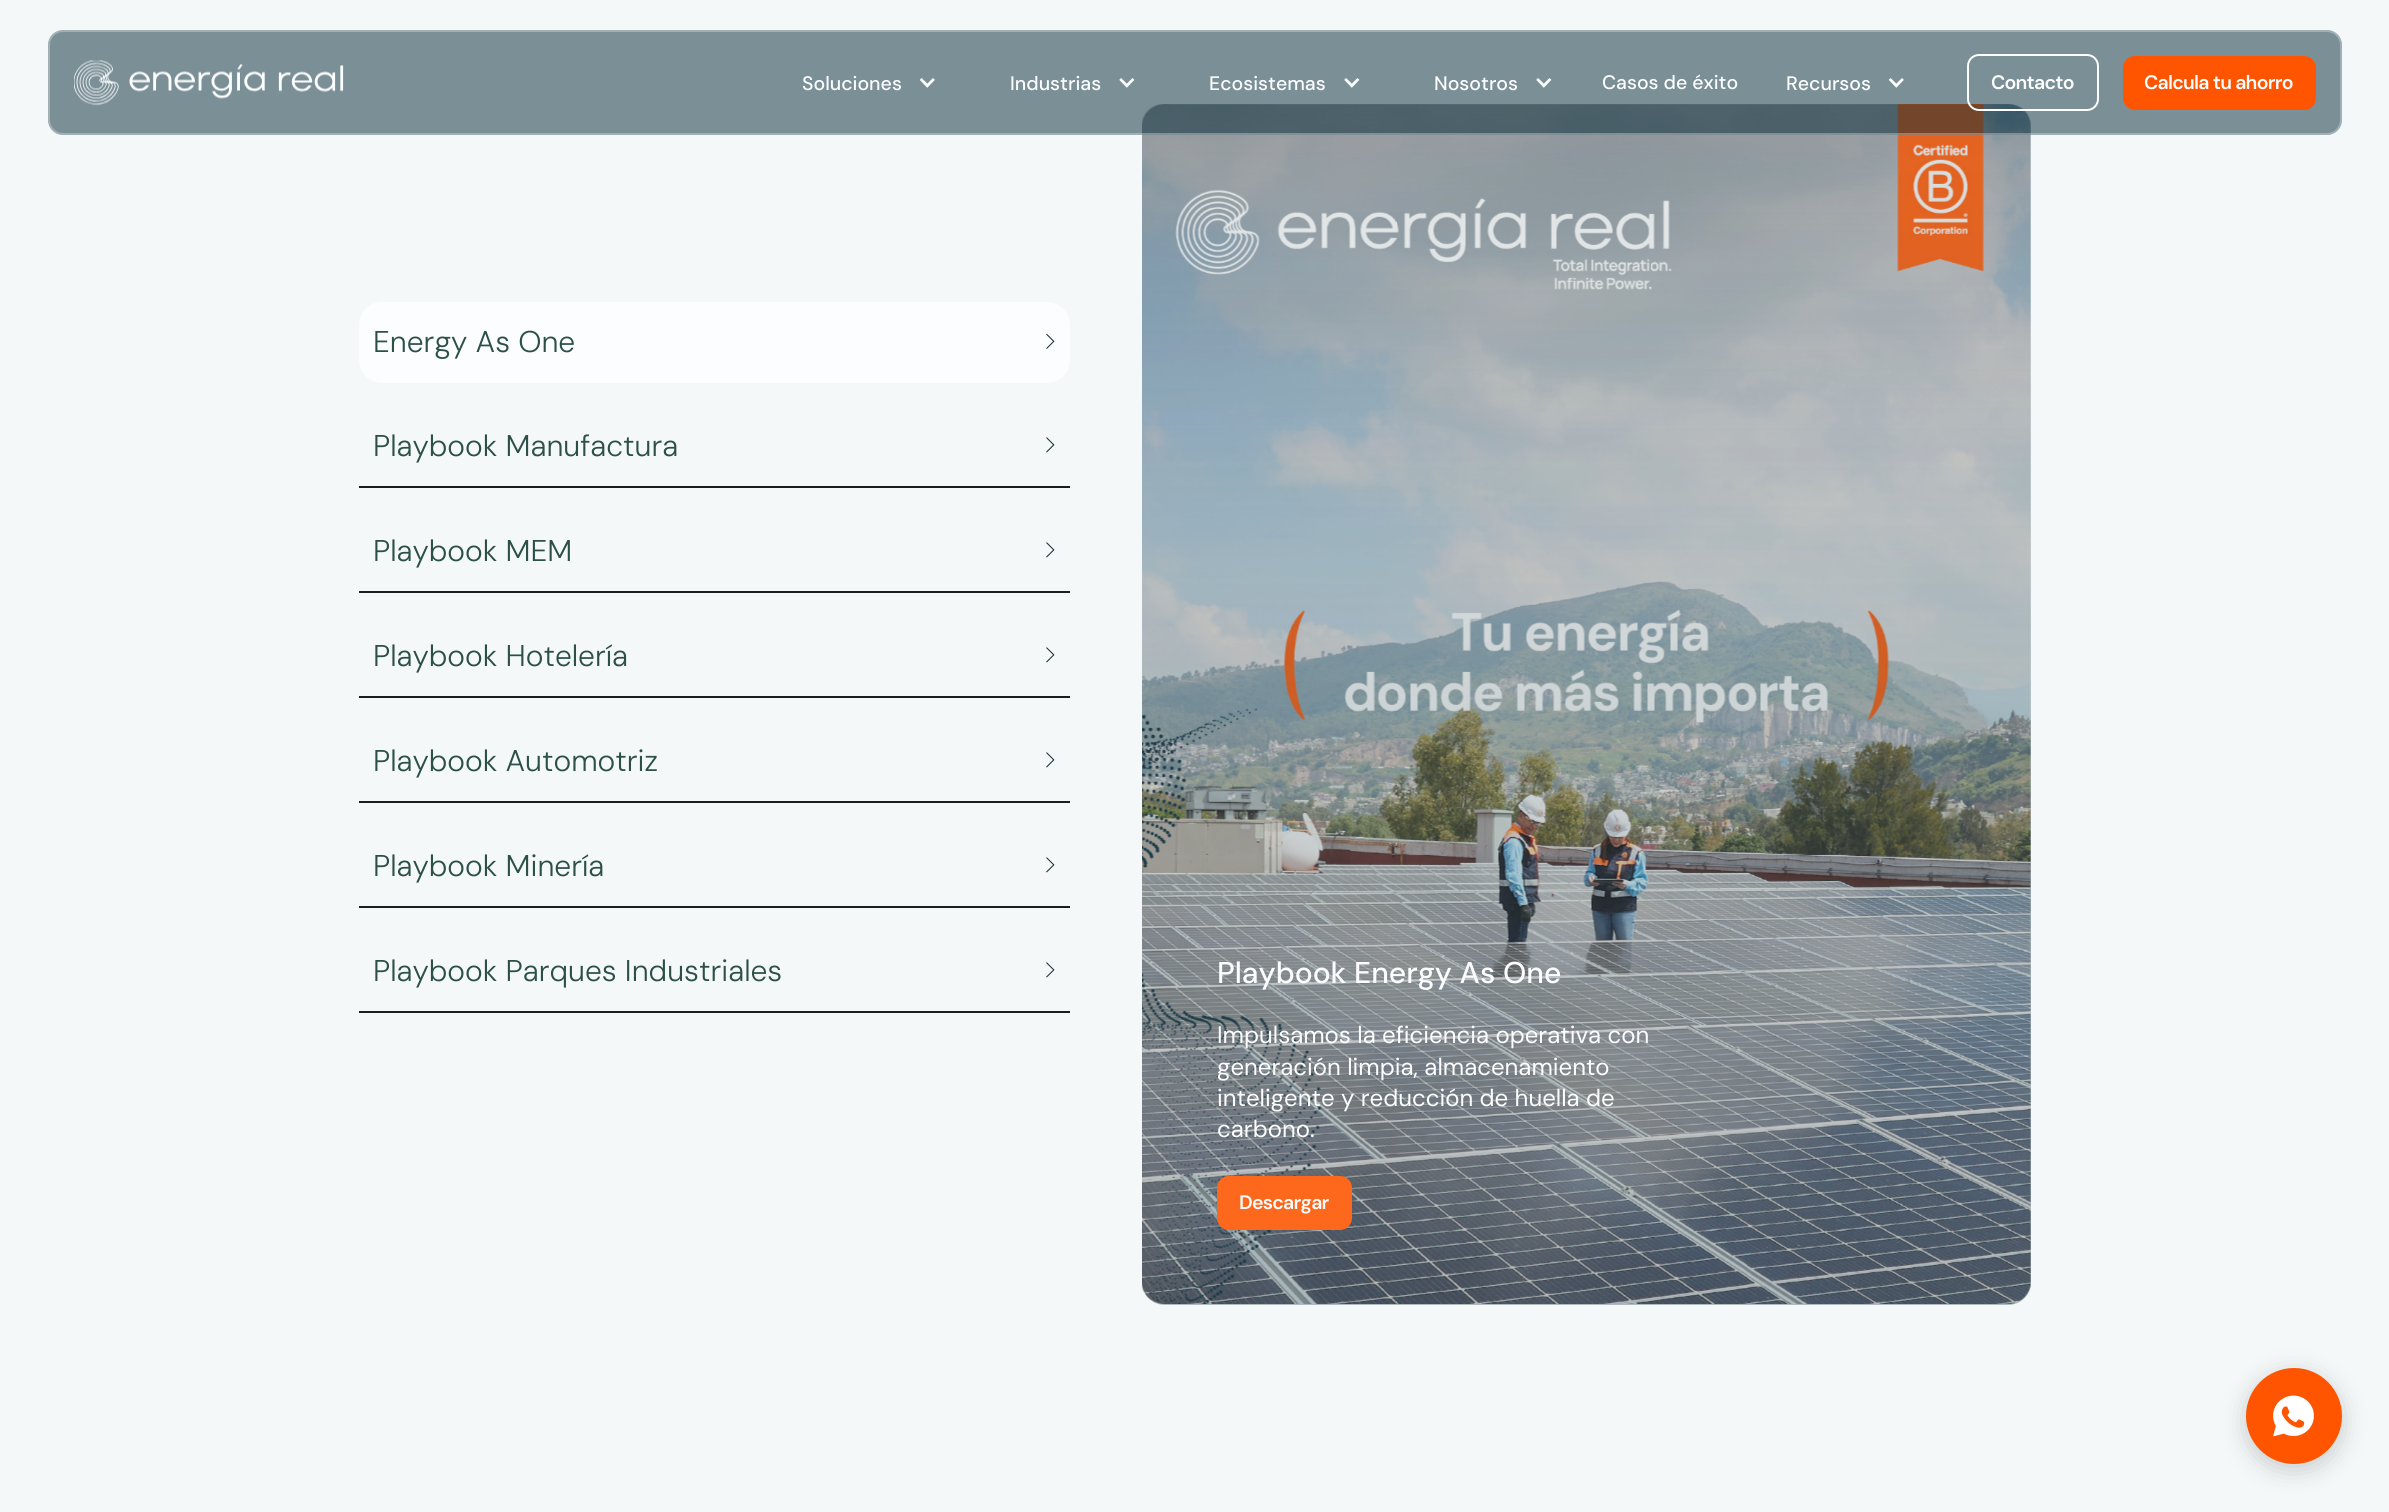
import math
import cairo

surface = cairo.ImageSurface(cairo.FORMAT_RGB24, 2389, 1512)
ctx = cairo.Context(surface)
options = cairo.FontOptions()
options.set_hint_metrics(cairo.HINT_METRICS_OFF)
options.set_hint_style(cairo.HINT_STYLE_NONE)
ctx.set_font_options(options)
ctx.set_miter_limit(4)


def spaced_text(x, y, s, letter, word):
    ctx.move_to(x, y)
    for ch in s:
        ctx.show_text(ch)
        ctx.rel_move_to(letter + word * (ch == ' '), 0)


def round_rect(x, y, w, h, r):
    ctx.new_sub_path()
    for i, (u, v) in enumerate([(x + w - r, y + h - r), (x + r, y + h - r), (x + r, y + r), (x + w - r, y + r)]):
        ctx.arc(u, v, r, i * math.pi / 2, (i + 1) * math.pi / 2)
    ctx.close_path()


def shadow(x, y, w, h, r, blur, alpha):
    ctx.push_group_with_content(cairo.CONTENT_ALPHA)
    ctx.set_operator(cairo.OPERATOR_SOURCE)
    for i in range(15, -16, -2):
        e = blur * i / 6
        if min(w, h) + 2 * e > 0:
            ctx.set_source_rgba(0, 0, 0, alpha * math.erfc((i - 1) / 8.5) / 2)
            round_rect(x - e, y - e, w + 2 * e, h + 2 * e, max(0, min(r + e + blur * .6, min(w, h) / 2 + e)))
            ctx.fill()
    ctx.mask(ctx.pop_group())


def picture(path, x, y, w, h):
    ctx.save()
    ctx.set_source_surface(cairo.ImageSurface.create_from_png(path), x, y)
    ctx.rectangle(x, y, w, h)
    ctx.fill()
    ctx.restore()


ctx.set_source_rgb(0.957, 0.969, 0.976)
ctx.paint()
picture("img6.png", 1142, 104, 889, 1200)
ctx.set_source_rgba(0.11, 0.243, 0.298, 0.1)
round_rect(1142, 105, 889, 1200, 23)
ctx.fill()
gradient = cairo.LinearGradient(1586, 104, 1586, 1304)
gradient.add_color_stop_rgba(0, 0.11, 0.192, 0.224, 0)
gradient.add_color_stop_rgba(1, 0.11, 0.192, 0.224, 0.24)
ctx.set_source(gradient)
round_rect(1142, 105, 889, 1200, 23)
ctx.fill()
ctx.set_source_rgba(0, 0.149, 0.208, 0.5)
round_rect(48, 30, 2294, 105, 15)
ctx.fill()
round_rect(49, 31, 2292, 103, 14)
ctx.set_source_rgba(1, 0.996, 0.996, 0.3)
ctx.stroke()
picture("img1.png", 74, 60, 270, 45)
ctx.select_font_face("DM Sans Medium")
ctx.set_font_size(19.5)
ctx.set_source_rgb(0.988, 0.992, 0.996)
ctx.move_to(802, 90)
ctx.show_text("Soluciones")
picture("img2.png", 919, 78, 16, 10)
ctx.move_to(1010, 90)
ctx.show_text("Industrias")
picture("img3.png", 1119, 78, 16, 10)
ctx.move_to(1209, 90)
ctx.show_text("Ecosistemas")
picture("img3.png", 1344, 78, 16, 10)
ctx.move_to(1434, 90)
ctx.show_text("Nosotros")
picture("img3.png", 1536, 78, 16, 10)
ctx.move_to(1602, 89)
ctx.show_text("Casos de éxito")
ctx.move_to(1786, 90)
ctx.show_text("Recursos")
picture("img2.png", 1888, 78, 16, 10)
round_rect(1968, 55, 130, 55, 11)
ctx.set_source_rgb(0.992, 0.996, 1)
ctx.stroke()
ctx.select_font_face("DM Sans SemiBold")
ctx.set_source_rgb(0.988, 0.992, 0.996)
spaced_text(1991, 89, "Contacto", -0.75, 0)
ctx.set_source_rgb(1, 0.333, 0)
round_rect(2123, 56, 193, 54, 12)
ctx.fill()
ctx.set_source_rgb(0.988, 0.992, 0.996)
spaced_text(2144, 89, "Calcula tu ahorro", -0.75, 0)
round_rect(359, 302, 711, 81, 23)
ctx.fill()
ctx.select_font_face("DM Sans Light")
ctx.set_font_size(30)
ctx.set_source_rgb(0.173, 0.314, 0.263)
ctx.move_to(373, 352)
ctx.show_text("Energy As One")
picture("img4.png", 1046, 333, 9, 16)
ctx.set_source_rgb(0.11, 0.114, 0.114)
ctx.rectangle(359, 486, 711, 2)
ctx.fill()
ctx.set_source_rgb(0.173, 0.314, 0.263)
ctx.move_to(373, 456)
ctx.show_text("Playbook Manufactura")
picture("img5.png", 1046, 437, 9, 16)
ctx.set_source_rgb(0.11, 0.114, 0.114)
ctx.rectangle(359, 591, 711, 2)
ctx.fill()
ctx.set_source_rgb(0.173, 0.314, 0.263)
ctx.move_to(373, 561)
ctx.show_text("Playbook MEM")
picture("img5.png", 1046, 542, 9, 16)
ctx.set_source_rgb(0.11, 0.114, 0.114)
ctx.rectangle(359, 696, 711, 2)
ctx.fill()
ctx.set_source_rgb(0.173, 0.314, 0.263)
ctx.move_to(373, 666)
ctx.show_text("Playbook Hotelería")
picture("img5.png", 1046, 647, 9, 16)
ctx.set_source_rgb(0.11, 0.114, 0.114)
ctx.rectangle(359, 801, 711, 2)
ctx.fill()
ctx.set_source_rgb(0.173, 0.314, 0.263)
ctx.move_to(373, 771)
ctx.show_text("Playbook Automotriz")
picture("img5.png", 1046, 752, 9, 16)
ctx.set_source_rgb(0.11, 0.114, 0.114)
ctx.rectangle(359, 906, 711, 2)
ctx.fill()
ctx.set_source_rgb(0.173, 0.314, 0.263)
ctx.move_to(373, 876)
ctx.show_text("Playbook Minería")
picture("img5.png", 1046, 857, 9, 16)
ctx.set_source_rgb(0.11, 0.114, 0.114)
ctx.rectangle(359, 1011, 711, 2)
ctx.fill()
ctx.set_source_rgb(0.173, 0.314, 0.263)
ctx.move_to(373, 981)
ctx.show_text("Playbook Parques Industriales")
picture("img5.png", 1046, 962, 9, 16)
ctx.select_font_face("DM Sans Medium")
ctx.set_source_rgb(0.988, 0.992, 0.996)
ctx.move_to(1217, 983)
ctx.show_text("Playbook Energy As One")
ctx.select_font_face("DM Sans")
ctx.set_font_size(24)
ctx.move_to(1217, 1043)
ctx.show_text("Impulsamos la eficiencia operativa con")
ctx.move_to(1217, 1075)
ctx.show_text("generación limpia, almacenamiento")
ctx.move_to(1217, 1106)
ctx.show_text("inteligente y reducción de huella de")
ctx.move_to(1217, 1137)
ctx.show_text("carbono.")
ctx.set_source_rgb(0.996, 0.408, 0.114)
round_rect(1217, 1176, 135, 54, 12)
ctx.fill()
ctx.select_font_face("DM Sans SemiBold")
ctx.set_font_size(19.5)
ctx.set_source_rgb(0.988, 0.992, 0.996)
spaced_text(1239, 1209, "Descargar", -0.75, 0)
ctx.set_source_rgb(0, 0, 0)
shadow(2246, 1374, 96, 96, 48, 12, 0.18)
ctx.set_source_rgb(1, 0.333, 0)
ctx.arc(2294, 1416, 48, 0, 2 * math.pi)
ctx.fill()
picture("img7.png", 2273, 1395, 41, 42)
surface.write_to_png("page.png")
